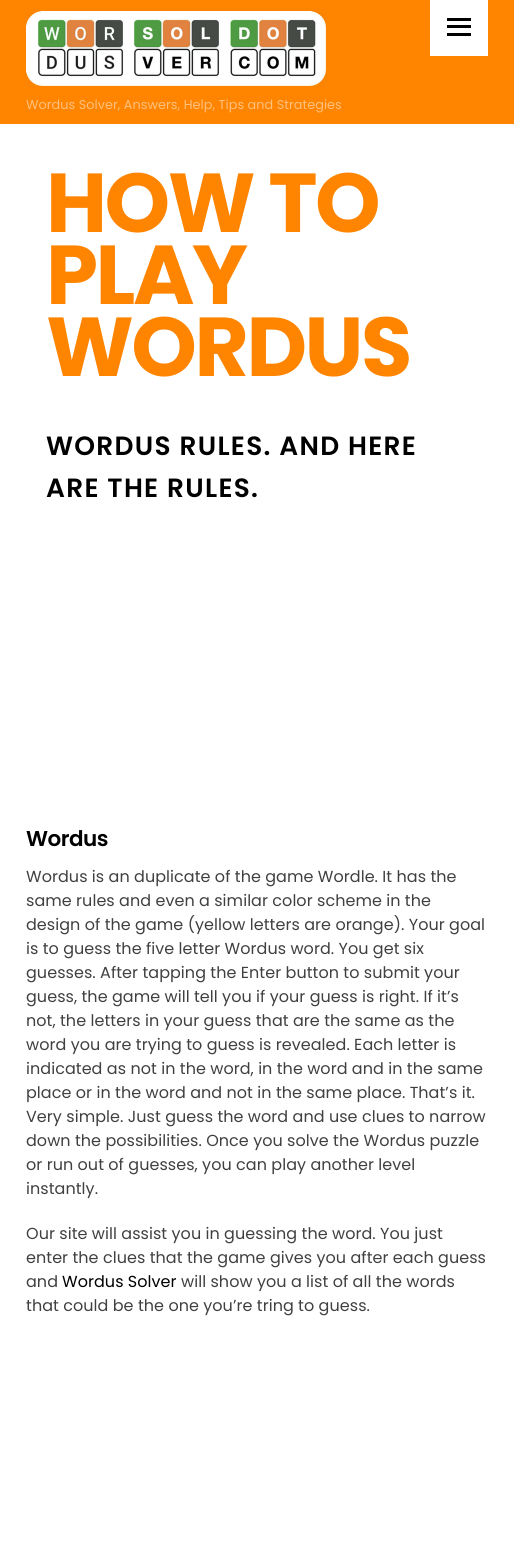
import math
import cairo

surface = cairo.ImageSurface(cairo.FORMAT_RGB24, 514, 1554)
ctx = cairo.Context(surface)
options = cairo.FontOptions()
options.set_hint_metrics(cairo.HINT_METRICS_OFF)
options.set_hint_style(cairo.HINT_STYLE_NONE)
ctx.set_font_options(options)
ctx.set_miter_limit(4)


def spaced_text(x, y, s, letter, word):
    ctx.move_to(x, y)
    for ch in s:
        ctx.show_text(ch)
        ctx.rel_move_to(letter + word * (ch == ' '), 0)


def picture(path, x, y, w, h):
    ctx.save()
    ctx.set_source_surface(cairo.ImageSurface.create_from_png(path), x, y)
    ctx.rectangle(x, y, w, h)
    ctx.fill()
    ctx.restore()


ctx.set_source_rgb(1, 1, 1)
ctx.paint()
ctx.set_source_rgb(1, 0.518, 0)
ctx.rectangle(0, 0, 514, 124)
ctx.fill()
ctx.set_source_rgb(1, 1, 1)
ctx.rectangle(430, 0, 58, 56)
ctx.fill()
ctx.set_source_rgb(0, 0, 0)
ctx.rectangle(447, 33, 24, 3)
ctx.fill()
ctx.rectangle(447, 18, 24, 3)
ctx.fill()
ctx.rectangle(447, 25, 24, 3)
ctx.fill()
picture("img1.png", 26, 11, 300, 75)
ctx.select_font_face("Poppins")
ctx.set_font_size(12.8)
ctx.set_source_rgb(1, 0.753, 0.49)
spaced_text(26, 109, "Wordus Solver, Answers, Help, Tips and Strategies", 0.05, 0)
ctx.select_font_face("Poppins", cairo.FONT_SLANT_NORMAL, cairo.FONT_WEIGHT_BOLD)
ctx.set_font_size(83.5)
ctx.set_source_rgb(1, 0.518, 0)
spaced_text(46, 232, "HOW TO", -2.5, 0)
spaced_text(46, 304, "PLAY", -2.5, 0)
spaced_text(46, 376, "WORDUS", -2.5, 0)
ctx.select_font_face("Poppins SemiBold")
ctx.set_font_size(26.4)
ctx.set_source_rgb(0, 0, 0)
spaced_text(46, 455, "WORDUS RULES. AND HERE", 1.3, 0)
spaced_text(46, 497, "ARE THE RULES.", 1.3, 0)
ctx.set_font_size(21.5)
spaced_text(26, 846, "Wordus", -0.5, 0)
ctx.select_font_face("Poppins")
ctx.set_font_size(16)
ctx.set_source_rgb(0.251, 0.251, 0.251)
spaced_text(26, 882, "Wordus is an duplicate of the game Wordle. It has the", 0.05, 0)
spaced_text(26, 906, "same rules and even a similar color scheme in the", 0.05, 0)
spaced_text(26, 930, "design of the game (yellow letters are orange). Your goal", 0.05, 0)
spaced_text(26, 954, "is to guess the five letter Wordus word. You get six", 0.05, 0)
spaced_text(26, 978, "guesses. After tapping the Enter button to submit your", 0.05, 0)
spaced_text(26, 1002, "guess, the game will tell you if your guess is right. If it’s", 0.05, 0)
spaced_text(26, 1026, "not, the letters in your guess that are the same as the", 0.05, 0)
spaced_text(26, 1050, "word you are trying to guess is revealed. Each letter is", 0.05, 0)
spaced_text(26, 1074, "indicated as not in the word, in the word and in the same", 0.05, 0)
spaced_text(26, 1098, "place or in the word and not in the same place. That’s it.", 0.05, 0)
spaced_text(26, 1122, "Very simple. Just guess the word and use clues to narrow", 0.05, 0)
spaced_text(26, 1146, "down the possibilities. Once you solve the Wordus puzzle", 0.05, 0)
spaced_text(26, 1170, "or run out of guesses, you can play another level", 0.05, 0)
spaced_text(26, 1194, "instantly.", 0.05, 0)
spaced_text(26, 1239, "Our site will assist you in guessing the word. You just", 0.05, 0)
spaced_text(26, 1263, "enter the clues that the game gives you after each guess", 0.05, 0)
spaced_text(26, 1287, "and", 0.05, 0)
ctx.set_source_rgb(0, 0, 0)
spaced_text(62, 1287, "Wordus Solver", 0.05, 0)
ctx.set_source_rgb(0.251, 0.251, 0.251)
spaced_text(181, 1287, "will show you a list of all the words", 0.05, 0)
spaced_text(26, 1311, "that could be the one you’re tring to guess.", 0.05, 0)
surface.write_to_png("page.png")
